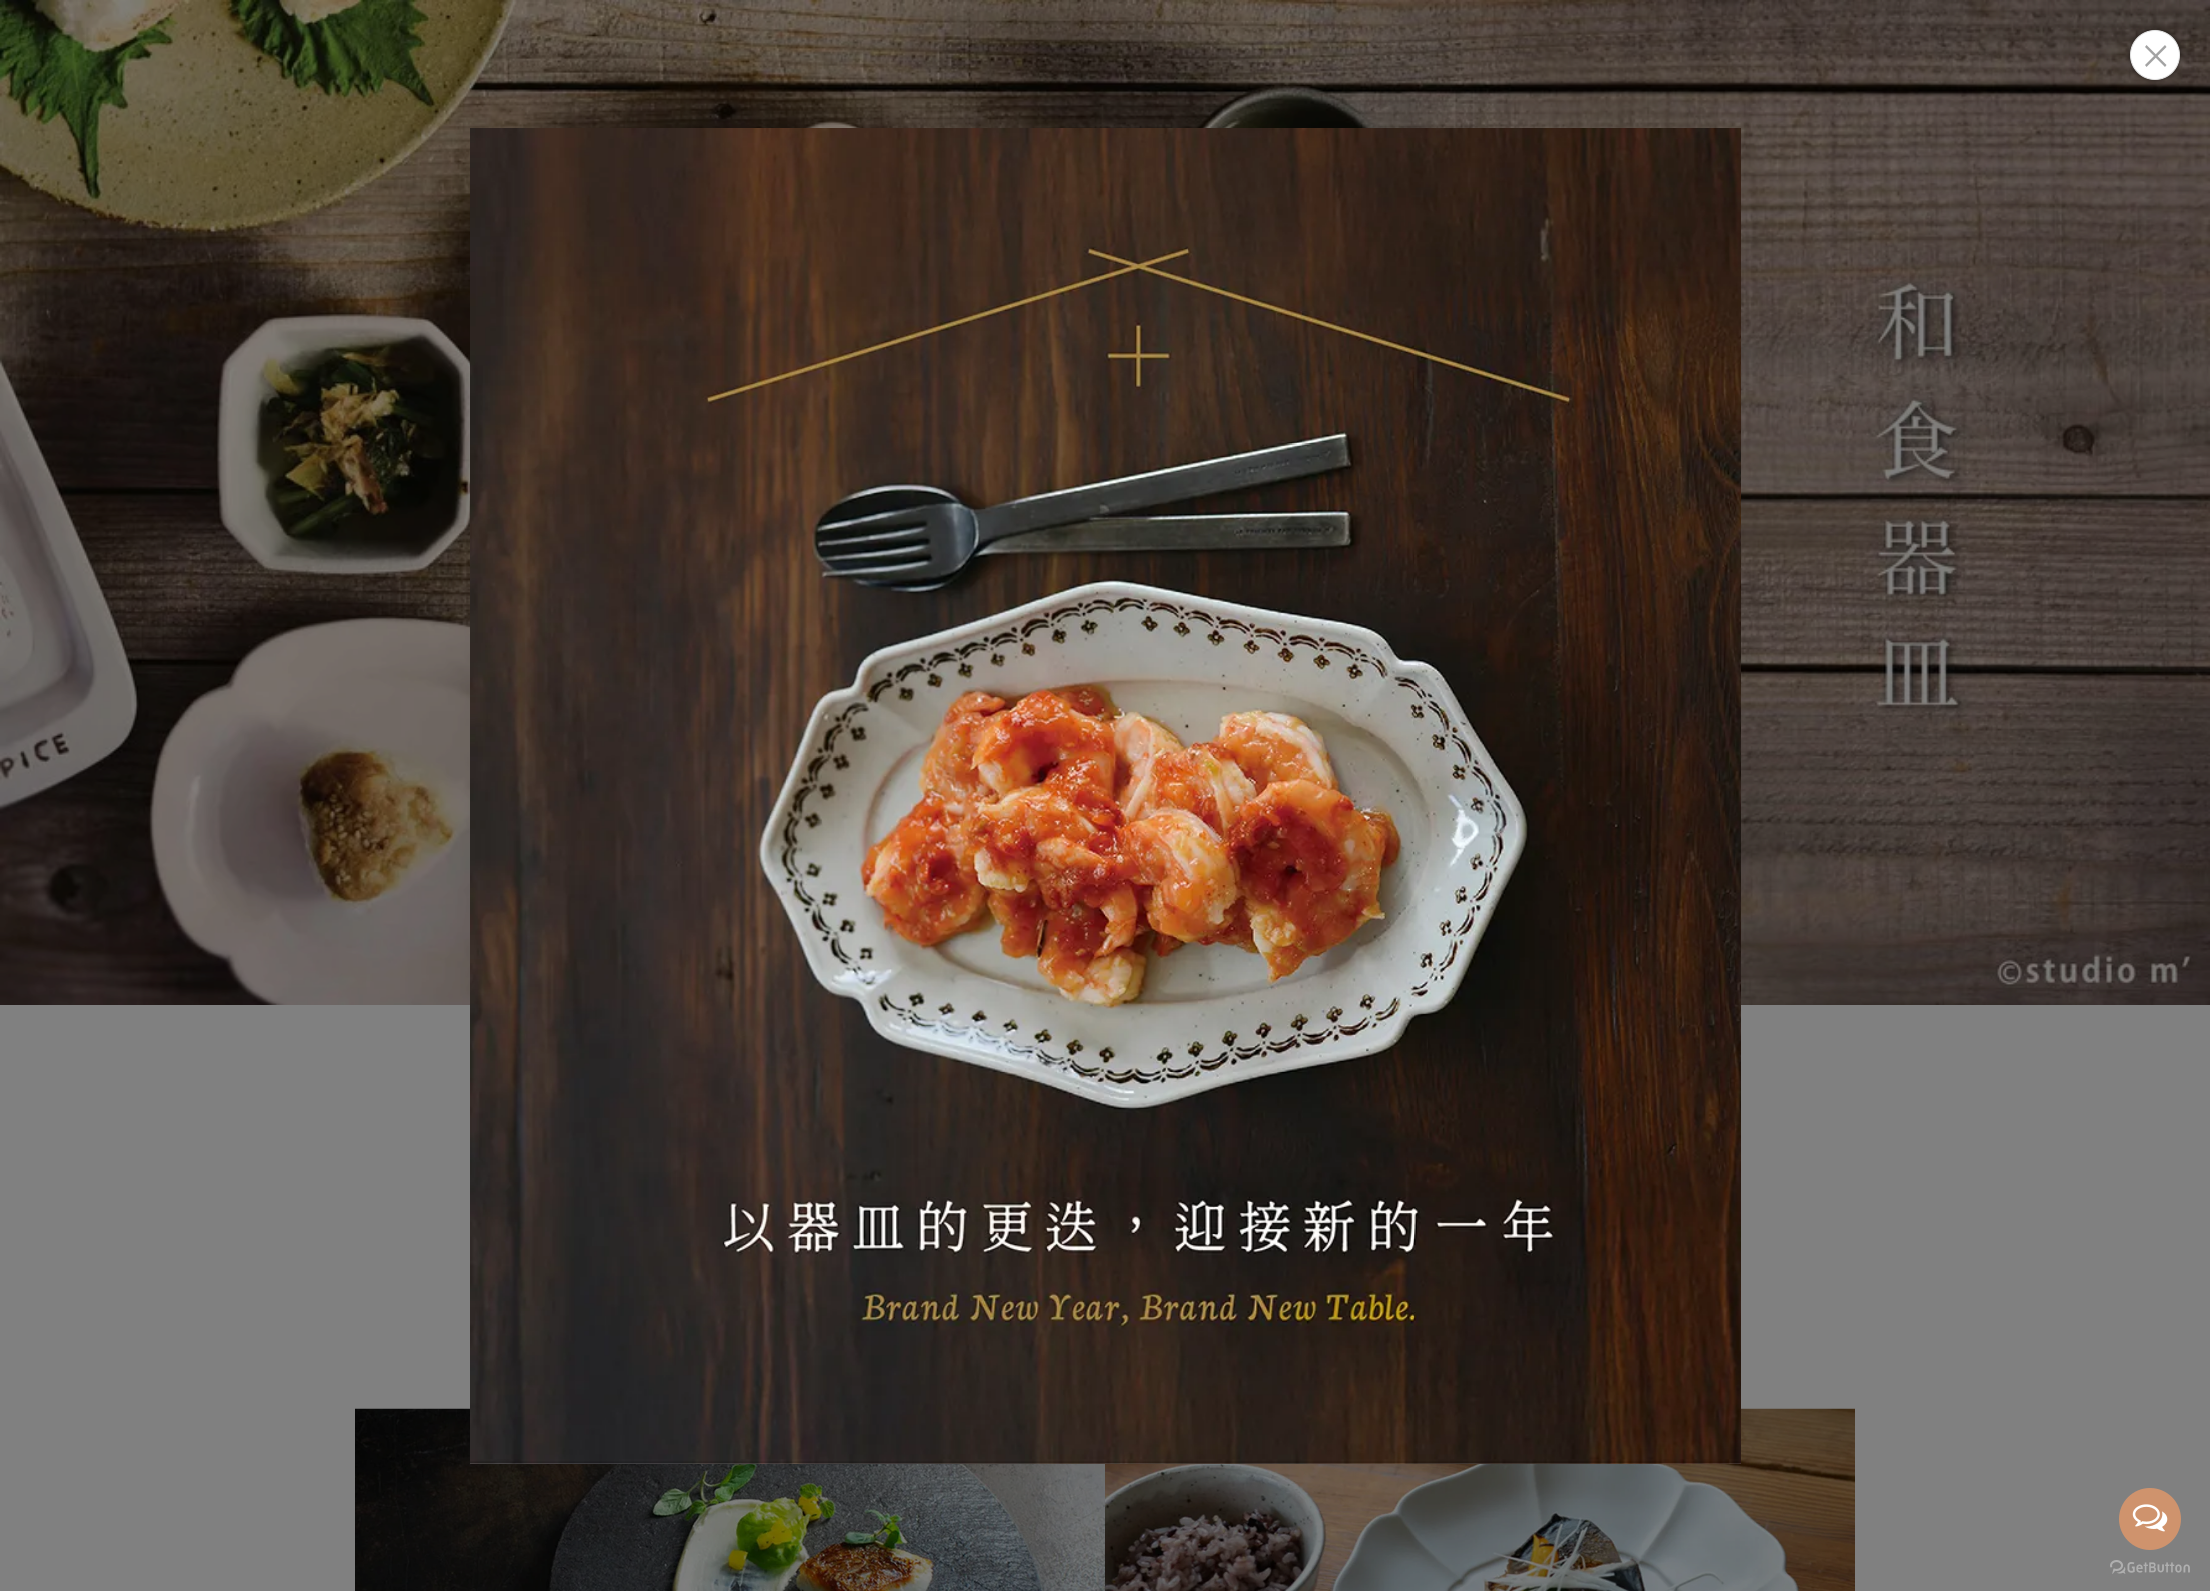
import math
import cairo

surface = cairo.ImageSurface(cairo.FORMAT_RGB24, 2210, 1591)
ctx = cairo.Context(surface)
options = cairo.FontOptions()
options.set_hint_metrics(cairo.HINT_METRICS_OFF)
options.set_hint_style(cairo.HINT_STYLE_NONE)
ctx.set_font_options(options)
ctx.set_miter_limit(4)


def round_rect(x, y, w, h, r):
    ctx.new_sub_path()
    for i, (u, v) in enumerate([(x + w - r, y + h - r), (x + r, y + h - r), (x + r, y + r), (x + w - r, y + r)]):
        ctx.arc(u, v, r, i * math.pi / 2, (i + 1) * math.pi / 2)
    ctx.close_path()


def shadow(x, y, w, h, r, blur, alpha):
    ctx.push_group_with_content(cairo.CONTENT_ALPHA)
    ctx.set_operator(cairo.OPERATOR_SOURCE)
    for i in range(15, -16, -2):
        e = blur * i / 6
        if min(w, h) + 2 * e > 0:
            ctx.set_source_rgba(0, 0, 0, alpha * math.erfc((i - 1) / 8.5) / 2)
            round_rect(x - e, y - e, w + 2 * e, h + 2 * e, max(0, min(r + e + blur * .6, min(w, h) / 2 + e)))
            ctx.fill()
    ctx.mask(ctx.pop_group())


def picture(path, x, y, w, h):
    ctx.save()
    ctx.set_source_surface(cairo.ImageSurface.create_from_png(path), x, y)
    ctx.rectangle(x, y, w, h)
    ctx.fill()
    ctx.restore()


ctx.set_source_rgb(0.502, 0.502, 0.502)
ctx.paint()
picture("img1.png", 0, 0, 2210, 1005)
picture("img2.png", 355, 1408, 750, 183)
picture("img3.png", 1105, 1408, 750, 183)
ctx.set_source_rgb(0, 0, 0)
shadow(2130, 30, 50, 50, 25, 2.5, 0.5)
ctx.set_source_rgb(1, 1, 1)
ctx.arc(2155, 55, 24.5, 0, 2 * math.pi)
ctx.fill_preserve()
ctx.set_source_rgb(0.886, 0.886, 0.886)
ctx.set_line_width(1)
ctx.stroke()
ctx.set_source_rgb(0.639, 0.639, 0.639)
ctx.new_path()
ctx.move_to(2146.5, 45)
ctx.line_to(2166.5, 65)
ctx.line_to(2165, 67)
ctx.line_to(2145, 47)
ctx.close_path()
ctx.fill()
ctx.new_path()
ctx.move_to(2145, 65)
ctx.line_to(2165, 45)
ctx.line_to(2166.5, 47)
ctx.line_to(2146.5, 67)
ctx.close_path()
ctx.fill()
picture("img4.png", 470, 128, 1271, 1336)
ctx.set_source_rgb(0.812, 0.576, 0.427)
ctx.arc(2150, 1519, 31, 0, 2 * math.pi)
ctx.fill()
picture("img5.png", 2132, 1504, 36, 28)
picture("img6.png", 2110, 1560, 80, 14)
surface.write_to_png("page.png")
